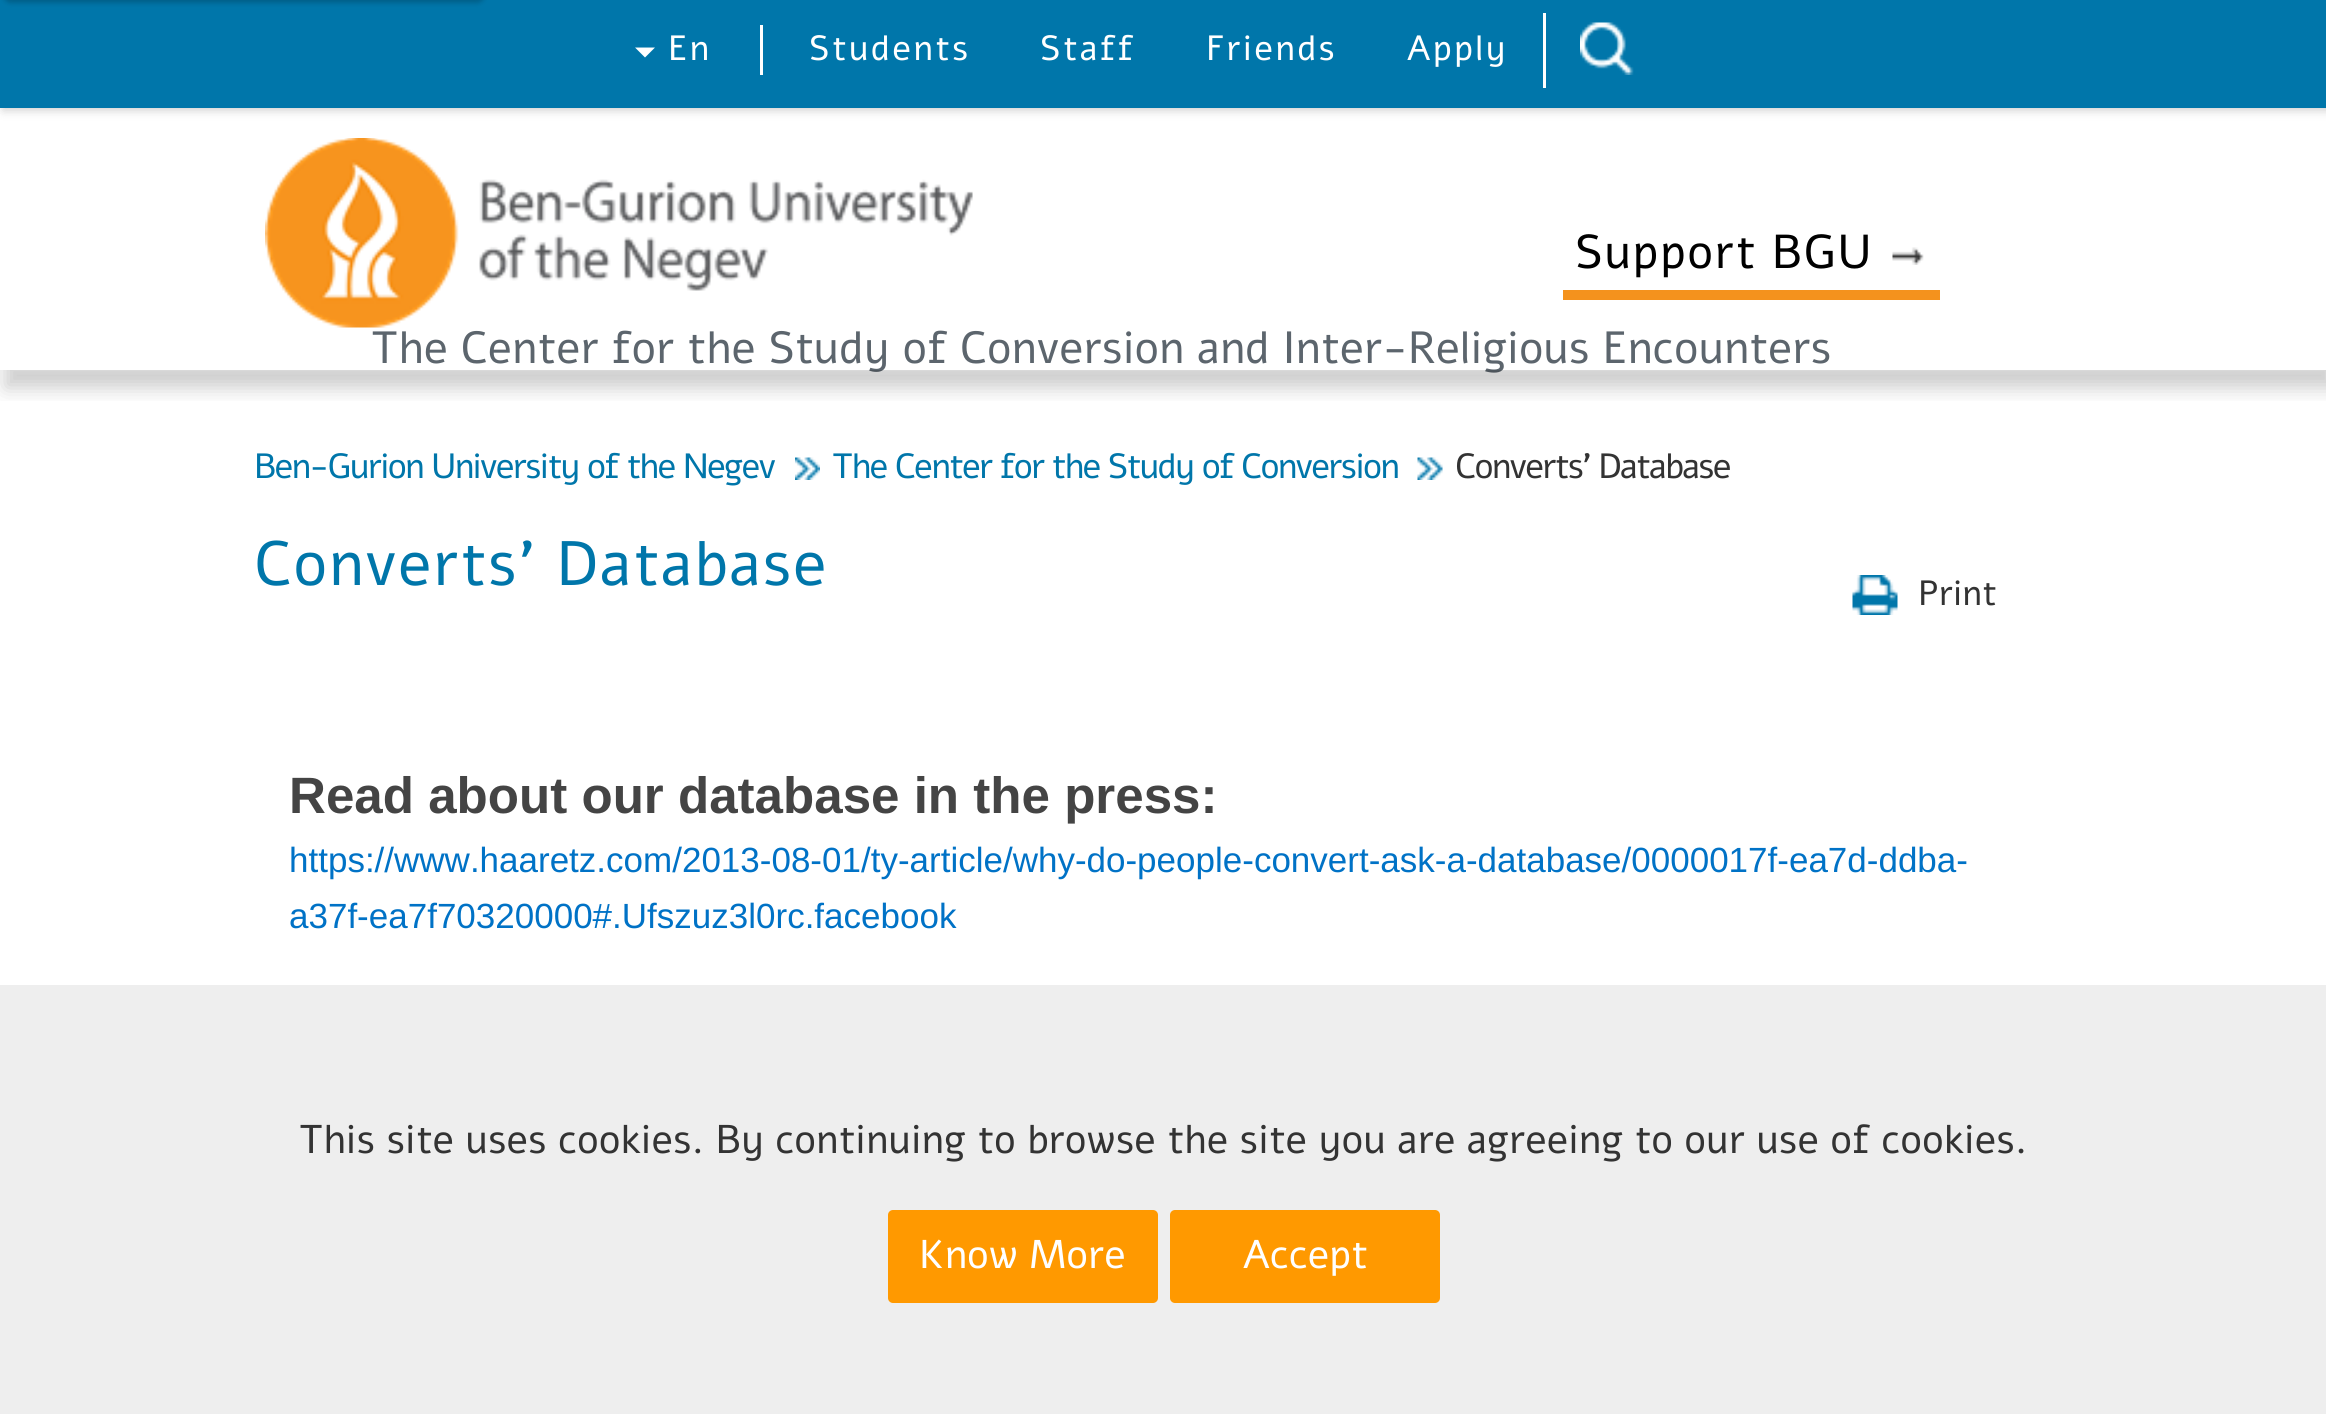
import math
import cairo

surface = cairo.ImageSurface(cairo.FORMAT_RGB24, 2326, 1414)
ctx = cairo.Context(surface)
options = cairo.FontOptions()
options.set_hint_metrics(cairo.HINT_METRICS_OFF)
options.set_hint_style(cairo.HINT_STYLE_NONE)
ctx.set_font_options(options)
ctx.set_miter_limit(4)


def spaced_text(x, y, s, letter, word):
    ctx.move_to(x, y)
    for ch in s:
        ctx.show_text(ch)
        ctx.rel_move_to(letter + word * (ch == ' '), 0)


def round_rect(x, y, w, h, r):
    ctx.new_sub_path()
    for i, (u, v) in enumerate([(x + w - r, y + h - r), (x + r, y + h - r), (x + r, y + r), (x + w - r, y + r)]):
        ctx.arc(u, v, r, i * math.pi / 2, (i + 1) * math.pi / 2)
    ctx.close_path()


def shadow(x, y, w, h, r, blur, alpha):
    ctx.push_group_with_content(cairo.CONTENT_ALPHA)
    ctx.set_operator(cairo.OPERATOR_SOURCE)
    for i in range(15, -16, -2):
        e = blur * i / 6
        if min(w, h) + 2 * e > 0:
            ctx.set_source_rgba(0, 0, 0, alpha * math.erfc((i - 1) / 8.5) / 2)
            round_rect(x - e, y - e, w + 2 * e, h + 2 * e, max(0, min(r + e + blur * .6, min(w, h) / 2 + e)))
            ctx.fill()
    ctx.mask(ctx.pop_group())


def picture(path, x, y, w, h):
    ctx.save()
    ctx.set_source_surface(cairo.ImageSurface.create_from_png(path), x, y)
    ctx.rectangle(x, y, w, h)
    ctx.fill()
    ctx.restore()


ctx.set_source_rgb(1, 1, 1)
ctx.paint()
ctx.set_source_rgb(0, 0, 0)
shadow(3, 3, 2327, 107, 0, 5, 0.2)
ctx.set_source_rgb(0, 0.463, 0.667)
ctx.rectangle(0, 0, 2326, 108)
ctx.fill()
ctx.set_source_rgb(0, 0, 0)
shadow(3, -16, 482, 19, 8, 2.5, 0.2)
ctx.set_source_rgb(1, 1, 1)
ctx.new_path()
ctx.move_to(635, 47.5)
ctx.line_to(655, 47.5)
ctx.line_to(645, 57.5)
ctx.close_path()
ctx.fill()
ctx.select_font_face("Alef")
ctx.set_font_size(35)
spaced_text(668, 60, "En", 2.25, 0)
ctx.rectangle(760, 25, 3, 50)
ctx.fill()
spaced_text(809, 60, "Students", 2.25, 0)
spaced_text(1040, 60, "Staff", 2.25, 0)
spaced_text(1206, 60, "Friends", 2.25, 0)
spaced_text(1407, 60, "Apply", 2.25, 0)
ctx.rectangle(1543, 13, 3, 75)
ctx.fill()
picture("img1.png", 1580, 22, 54, 53)
picture("img2.png", 265, 138, 708, 190)
picture("img3.png", 1892, 247, 32, 18)
ctx.set_source_rgb(0.957, 0.573, 0.114)
ctx.rectangle(1563, 290, 377, 10)
ctx.fill()
ctx.set_font_size(47.5)
ctx.set_source_rgb(0, 0, 0)
spaced_text(1575, 268, "Support BGU", 1.5, 0)
ctx.set_font_size(45)
ctx.set_source_rgb(0.361, 0.396, 0.427)
ctx.move_to(371, 363)
ctx.show_text("The Center for the Study of Conversion and Inter-Religious Encounters")
ctx.save()
ctx.rectangle(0, 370, 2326, 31)
ctx.clip()
ctx.set_source_rgb(0, 0, 0)
shadow(5, 363, 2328, 25, 0, 10, 0.2)
ctx.restore()
picture("img4.png", 795, 457, 25, 23)
ctx.set_font_size(35)
ctx.set_source_rgb(0, 0.463, 0.667)
spaced_text(254, 478, "Ben-Gurion University of the Negev", -1.75, 0)
picture("img5.png", 1417, 457, 26, 23)
spaced_text(832, 478, "The Center for the Study of Conversion", -1.75, 0)
ctx.set_source_rgb(0.2, 0.2, 0.2)
spaced_text(1455, 478, "Converts' Database", -1.75, 0)
ctx.set_font_size(62.5)
ctx.set_source_rgb(0, 0.463, 0.667)
spaced_text(254, 585, "Converts' Database", 1.5, 0)
picture("img6.png", 1852, 575, 46, 40)
ctx.set_font_size(35)
ctx.set_source_rgb(0.2, 0.2, 0.2)
ctx.move_to(1918, 605)
ctx.show_text("Print")
ctx.select_font_face("Liberation Sans", cairo.FONT_SLANT_NORMAL, cairo.FONT_WEIGHT_BOLD)
ctx.set_font_size(51.1)
ctx.set_source_rgb(0.267, 0.267, 0.267)
ctx.move_to(289, 813)
ctx.show_text("Read about our database in the press:")
ctx.select_font_face("Liberation Sans")
ctx.set_font_size(35)
ctx.set_source_rgb(0, 0.447, 0.776)
ctx.move_to(289, 872)
ctx.show_text("https://www.haaretz.com/2013-08-01/ty-article/why-do-people-convert-ask-a-database/0000017f-ea7d-ddba-")
ctx.move_to(289, 928)
ctx.show_text("a37f-ea7f70320000#.Ufszuz3l0rc.facebook")
ctx.set_source_rgb(0.933, 0.933, 0.933)
ctx.rectangle(0, 985, 2326, 429)
ctx.fill()
ctx.select_font_face("Alef")
ctx.set_font_size(40)
ctx.set_source_rgb(0.2, 0.2, 0.2)
ctx.move_to(299, 1153)
ctx.show_text("This site uses cookies. By continuing to browse the site you are agreeing to our use of cookies.")
ctx.set_source_rgb(1, 0.6, 0)
round_rect(888, 1210, 270, 93, 5)
ctx.fill()
ctx.set_source_rgb(1, 1, 1)
ctx.move_to(919, 1268)
ctx.show_text("Know More")
ctx.set_source_rgb(1, 0.6, 0)
round_rect(1170, 1210, 270, 93, 5)
ctx.fill()
ctx.set_source_rgb(1, 1, 1)
ctx.move_to(1243, 1268)
ctx.show_text("Accept")
surface.write_to_png("page.png")
